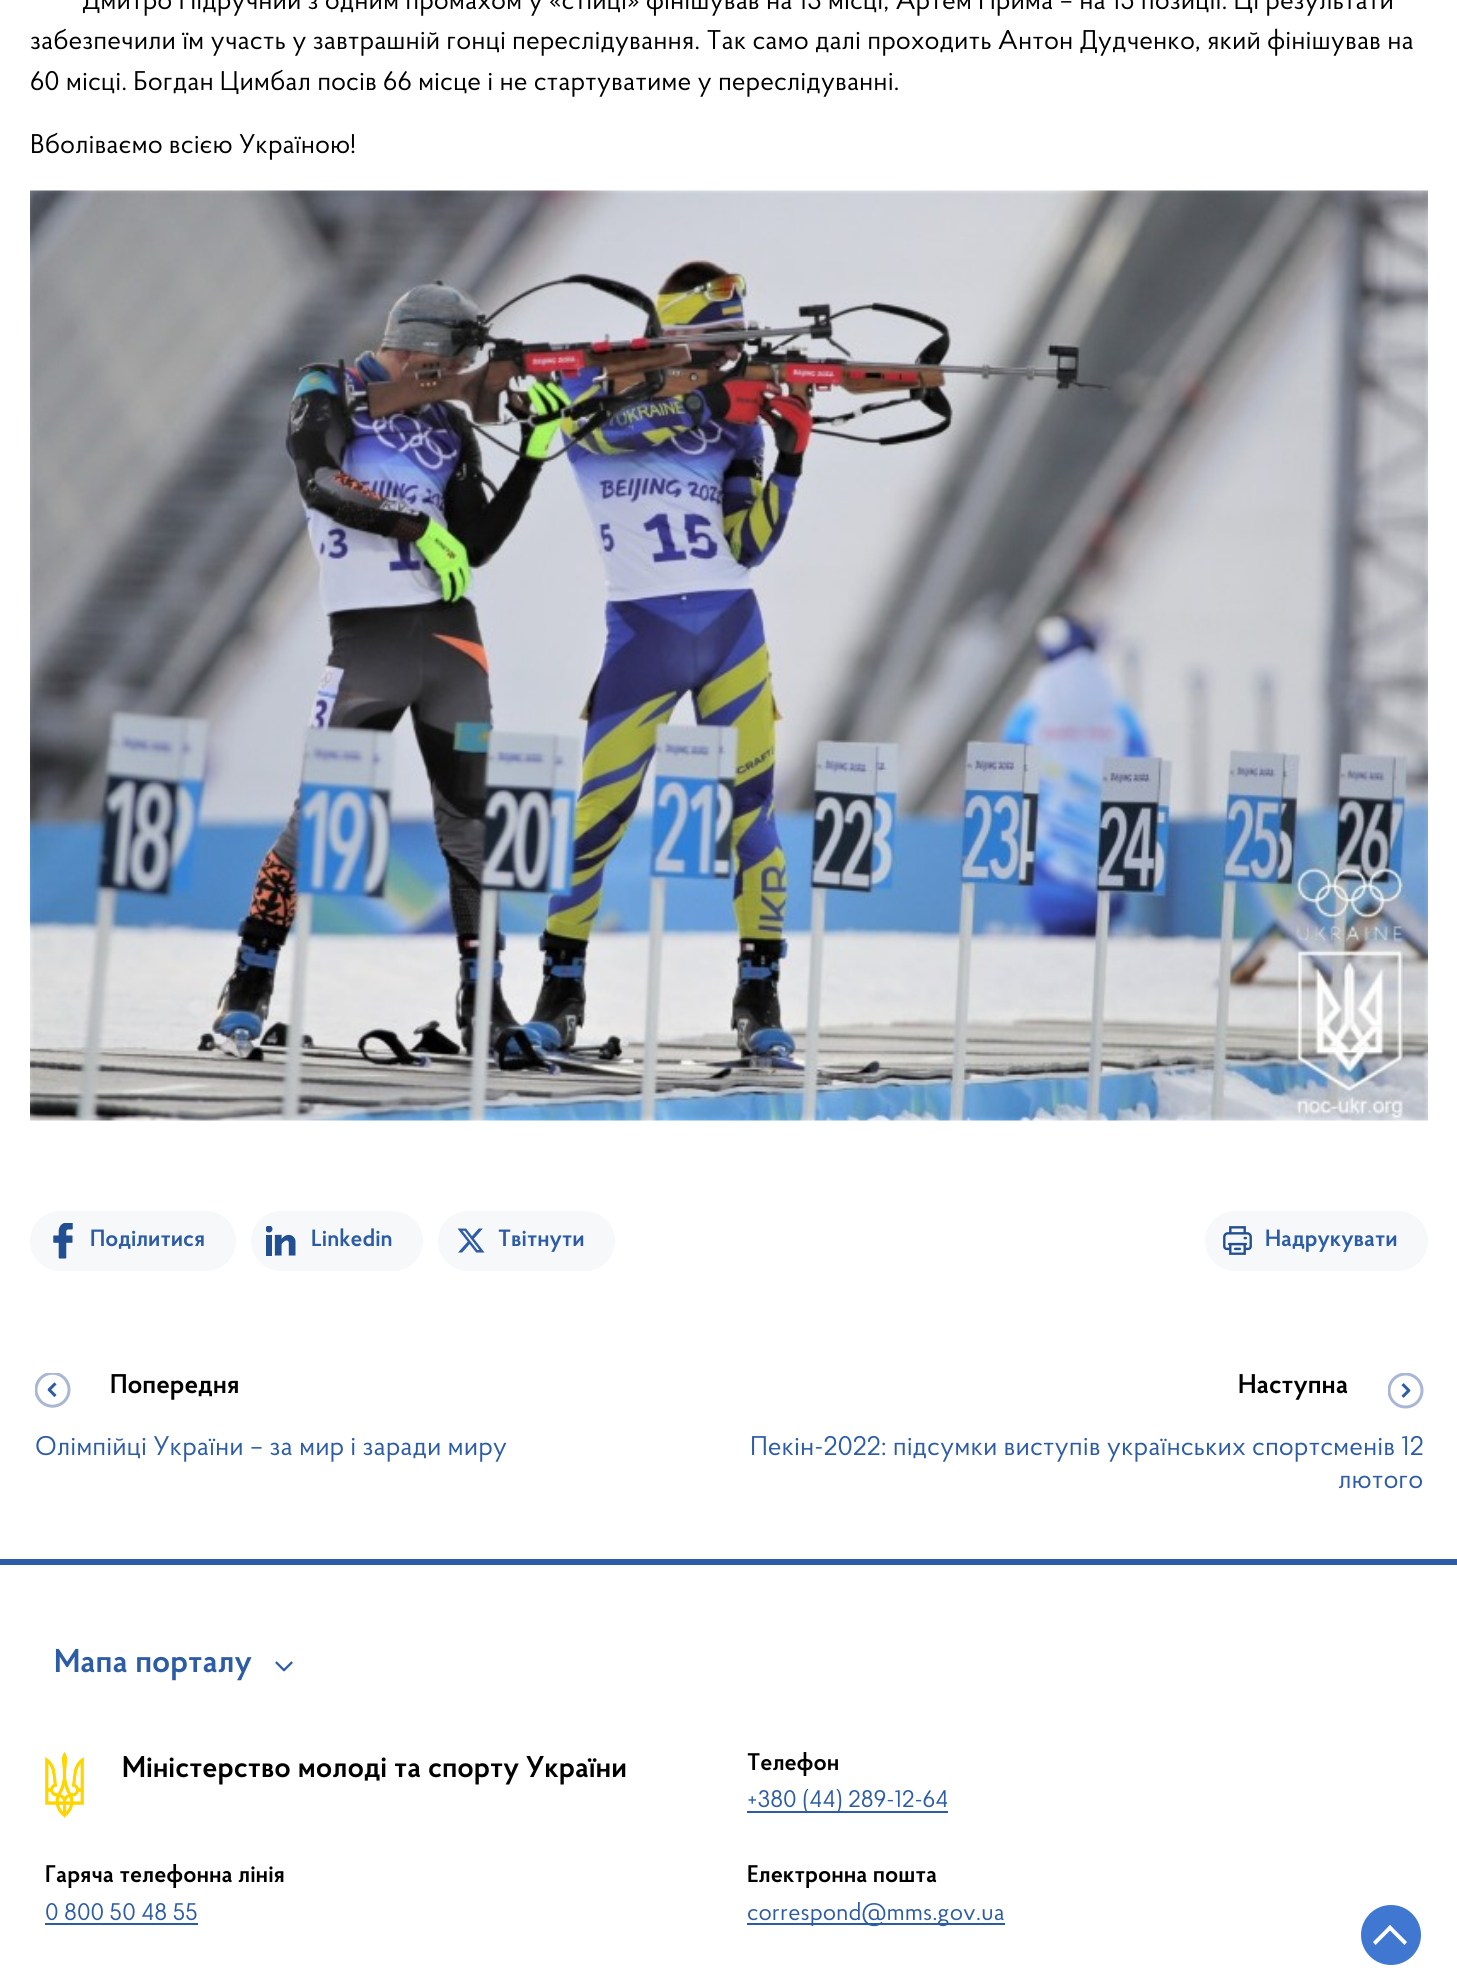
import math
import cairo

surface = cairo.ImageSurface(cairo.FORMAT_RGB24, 1457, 1972)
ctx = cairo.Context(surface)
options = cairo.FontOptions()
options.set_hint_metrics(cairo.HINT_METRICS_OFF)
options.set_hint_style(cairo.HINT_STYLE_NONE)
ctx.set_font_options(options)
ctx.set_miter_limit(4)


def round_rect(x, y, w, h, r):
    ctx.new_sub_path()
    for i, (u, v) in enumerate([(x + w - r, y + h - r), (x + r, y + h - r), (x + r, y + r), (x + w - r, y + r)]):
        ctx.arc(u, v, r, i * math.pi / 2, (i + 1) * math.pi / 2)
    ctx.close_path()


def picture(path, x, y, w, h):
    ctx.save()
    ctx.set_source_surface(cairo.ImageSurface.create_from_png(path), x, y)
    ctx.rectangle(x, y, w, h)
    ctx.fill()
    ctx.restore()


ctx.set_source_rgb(1, 1, 1)
ctx.paint()
ctx.select_font_face("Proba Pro")
ctx.set_font_size(27)
ctx.set_source_rgb(0, 0, 0)
ctx.move_to(82, 9)
ctx.show_text("Дмитро Підручний з одним промахом у «стійці» фінішував на 13 місці, Артем Прима – на 15 позиції. Ці результати")
ctx.move_to(30, 49)
ctx.show_text("забезпечили їм участь у завтрашній гонці переслідування. Так само далі проходить Антон Дудченко, який фінішував на")
ctx.move_to(30, 90)
ctx.show_text("60 місці. Богдан Цимбал посів 66 місце і не стартуватиме у переслідуванні.")
ctx.move_to(30, 153)
ctx.show_text("Вболіваємо всією Україною!")
picture("img1.png", 30, 190, 1398, 931)
ctx.set_source_rgb(0.961, 0.969, 0.98)
round_rect(30, 1211, 206, 60, 30)
ctx.fill()
picture("img2.png", 53, 1223, 20, 36)
ctx.select_font_face("Proba Pro SemiBold")
ctx.set_font_size(23.5)
ctx.set_source_rgb(0.176, 0.361, 0.651)
ctx.move_to(90, 1246)
ctx.show_text("Поділитися")
ctx.set_source_rgb(0.961, 0.969, 0.98)
round_rect(251, 1211, 172, 60, 30)
ctx.fill()
picture("img3.png", 266, 1226, 30, 30)
ctx.set_source_rgb(0.176, 0.361, 0.651)
ctx.move_to(311, 1246)
ctx.show_text("Linkedin")
ctx.set_source_rgb(0.961, 0.969, 0.98)
round_rect(438, 1211, 177, 60, 30)
ctx.fill()
picture("img4.png", 457, 1228, 28, 25)
ctx.set_source_rgb(0.176, 0.361, 0.651)
ctx.move_to(498, 1246)
ctx.show_text("Твітнути")
ctx.set_source_rgb(0.961, 0.969, 0.98)
round_rect(1205, 1211, 223, 60, 30)
ctx.fill()
picture("img5.png", 1223, 1226, 29, 29)
ctx.set_source_rgb(0.176, 0.361, 0.651)
ctx.move_to(1265, 1246)
ctx.show_text("Надрукувати")
picture("img6.png", 35, 1373, 36, 35)
ctx.set_font_size(27)
ctx.set_source_rgb(0, 0, 0)
ctx.move_to(110, 1393)
ctx.show_text("Попередня")
ctx.select_font_face("Proba Pro")
ctx.set_source_rgb(0.176, 0.361, 0.651)
ctx.move_to(35, 1455)
ctx.show_text("Олімпійці України – за мир і заради миру")
ctx.select_font_face("Proba Pro SemiBold")
ctx.set_source_rgb(0, 0, 0)
ctx.move_to(1238, 1393)
ctx.show_text("Наступна")
picture("img7.png", 1388, 1373, 36, 36)
ctx.select_font_face("Proba Pro")
ctx.set_source_rgb(0.176, 0.361, 0.651)
ctx.move_to(750, 1455)
ctx.show_text("Пекін-2022: підсумки виступів українських спортсменів 12")
ctx.move_to(1338, 1488)
ctx.show_text("лютого")
ctx.rectangle(0, 1559, 1457, 6)
ctx.fill()
ctx.select_font_face("Proba Pro SemiBold")
ctx.set_font_size(33)
ctx.move_to(54, 1672)
ctx.show_text("Мапа порталу")
picture("img8.png", 275, 1661, 18, 11)
picture("img9.png", 45, 1752, 39, 66)
ctx.set_font_size(30)
ctx.set_source_rgb(0, 0, 0)
ctx.move_to(122, 1777)
ctx.show_text("Міністерство молоді та спорту України")
ctx.set_font_size(24)
ctx.move_to(747, 1770)
ctx.show_text("Телефон")
ctx.set_source_rgb(0.176, 0.361, 0.651)
ctx.rectangle(747, 1811, 201, 2)
ctx.fill()
ctx.select_font_face("Proba Pro")
ctx.move_to(747, 1807)
ctx.show_text("+380 (44) 289-12-64")
ctx.select_font_face("Proba Pro SemiBold")
ctx.set_source_rgb(0, 0, 0)
ctx.move_to(45, 1882)
ctx.show_text("Гаряча телефонна лінія")
ctx.select_font_face("Proba Pro")
ctx.set_source_rgb(0.176, 0.361, 0.651)
ctx.move_to(45, 1920)
ctx.show_text("0 800 50 48 55")
ctx.rectangle(45, 1923, 153, 2)
ctx.fill()
ctx.select_font_face("Proba Pro SemiBold")
ctx.set_source_rgb(0, 0, 0)
ctx.move_to(747, 1882)
ctx.show_text("Електронна пошта")
ctx.set_source_rgb(0.176, 0.361, 0.651)
ctx.rectangle(747, 1923, 258, 2)
ctx.fill()
ctx.select_font_face("Proba Pro")
ctx.move_to(747, 1920)
ctx.show_text("correspond@mms.gov.ua")
ctx.set_source_rgb(0.251, 0.471, 0.82)
ctx.new_path()
ctx.arc(1391, 1935, 30, 0, 2 * math.pi)
ctx.fill()
ctx.set_source_rgb(1, 1, 1)
ctx.new_path()
ctx.move_to(1387.5, 1928)
ctx.line_to(1390, 1925)
ctx.line_to(1407, 1942)
ctx.line_to(1404.5, 1945)
ctx.close_path()
ctx.fill()
ctx.new_path()
ctx.move_to(1390, 1925)
ctx.line_to(1392.5, 1928)
ctx.line_to(1375.5, 1945)
ctx.line_to(1373, 1942)
ctx.close_path()
ctx.fill()
surface.write_to_png("page.png")
